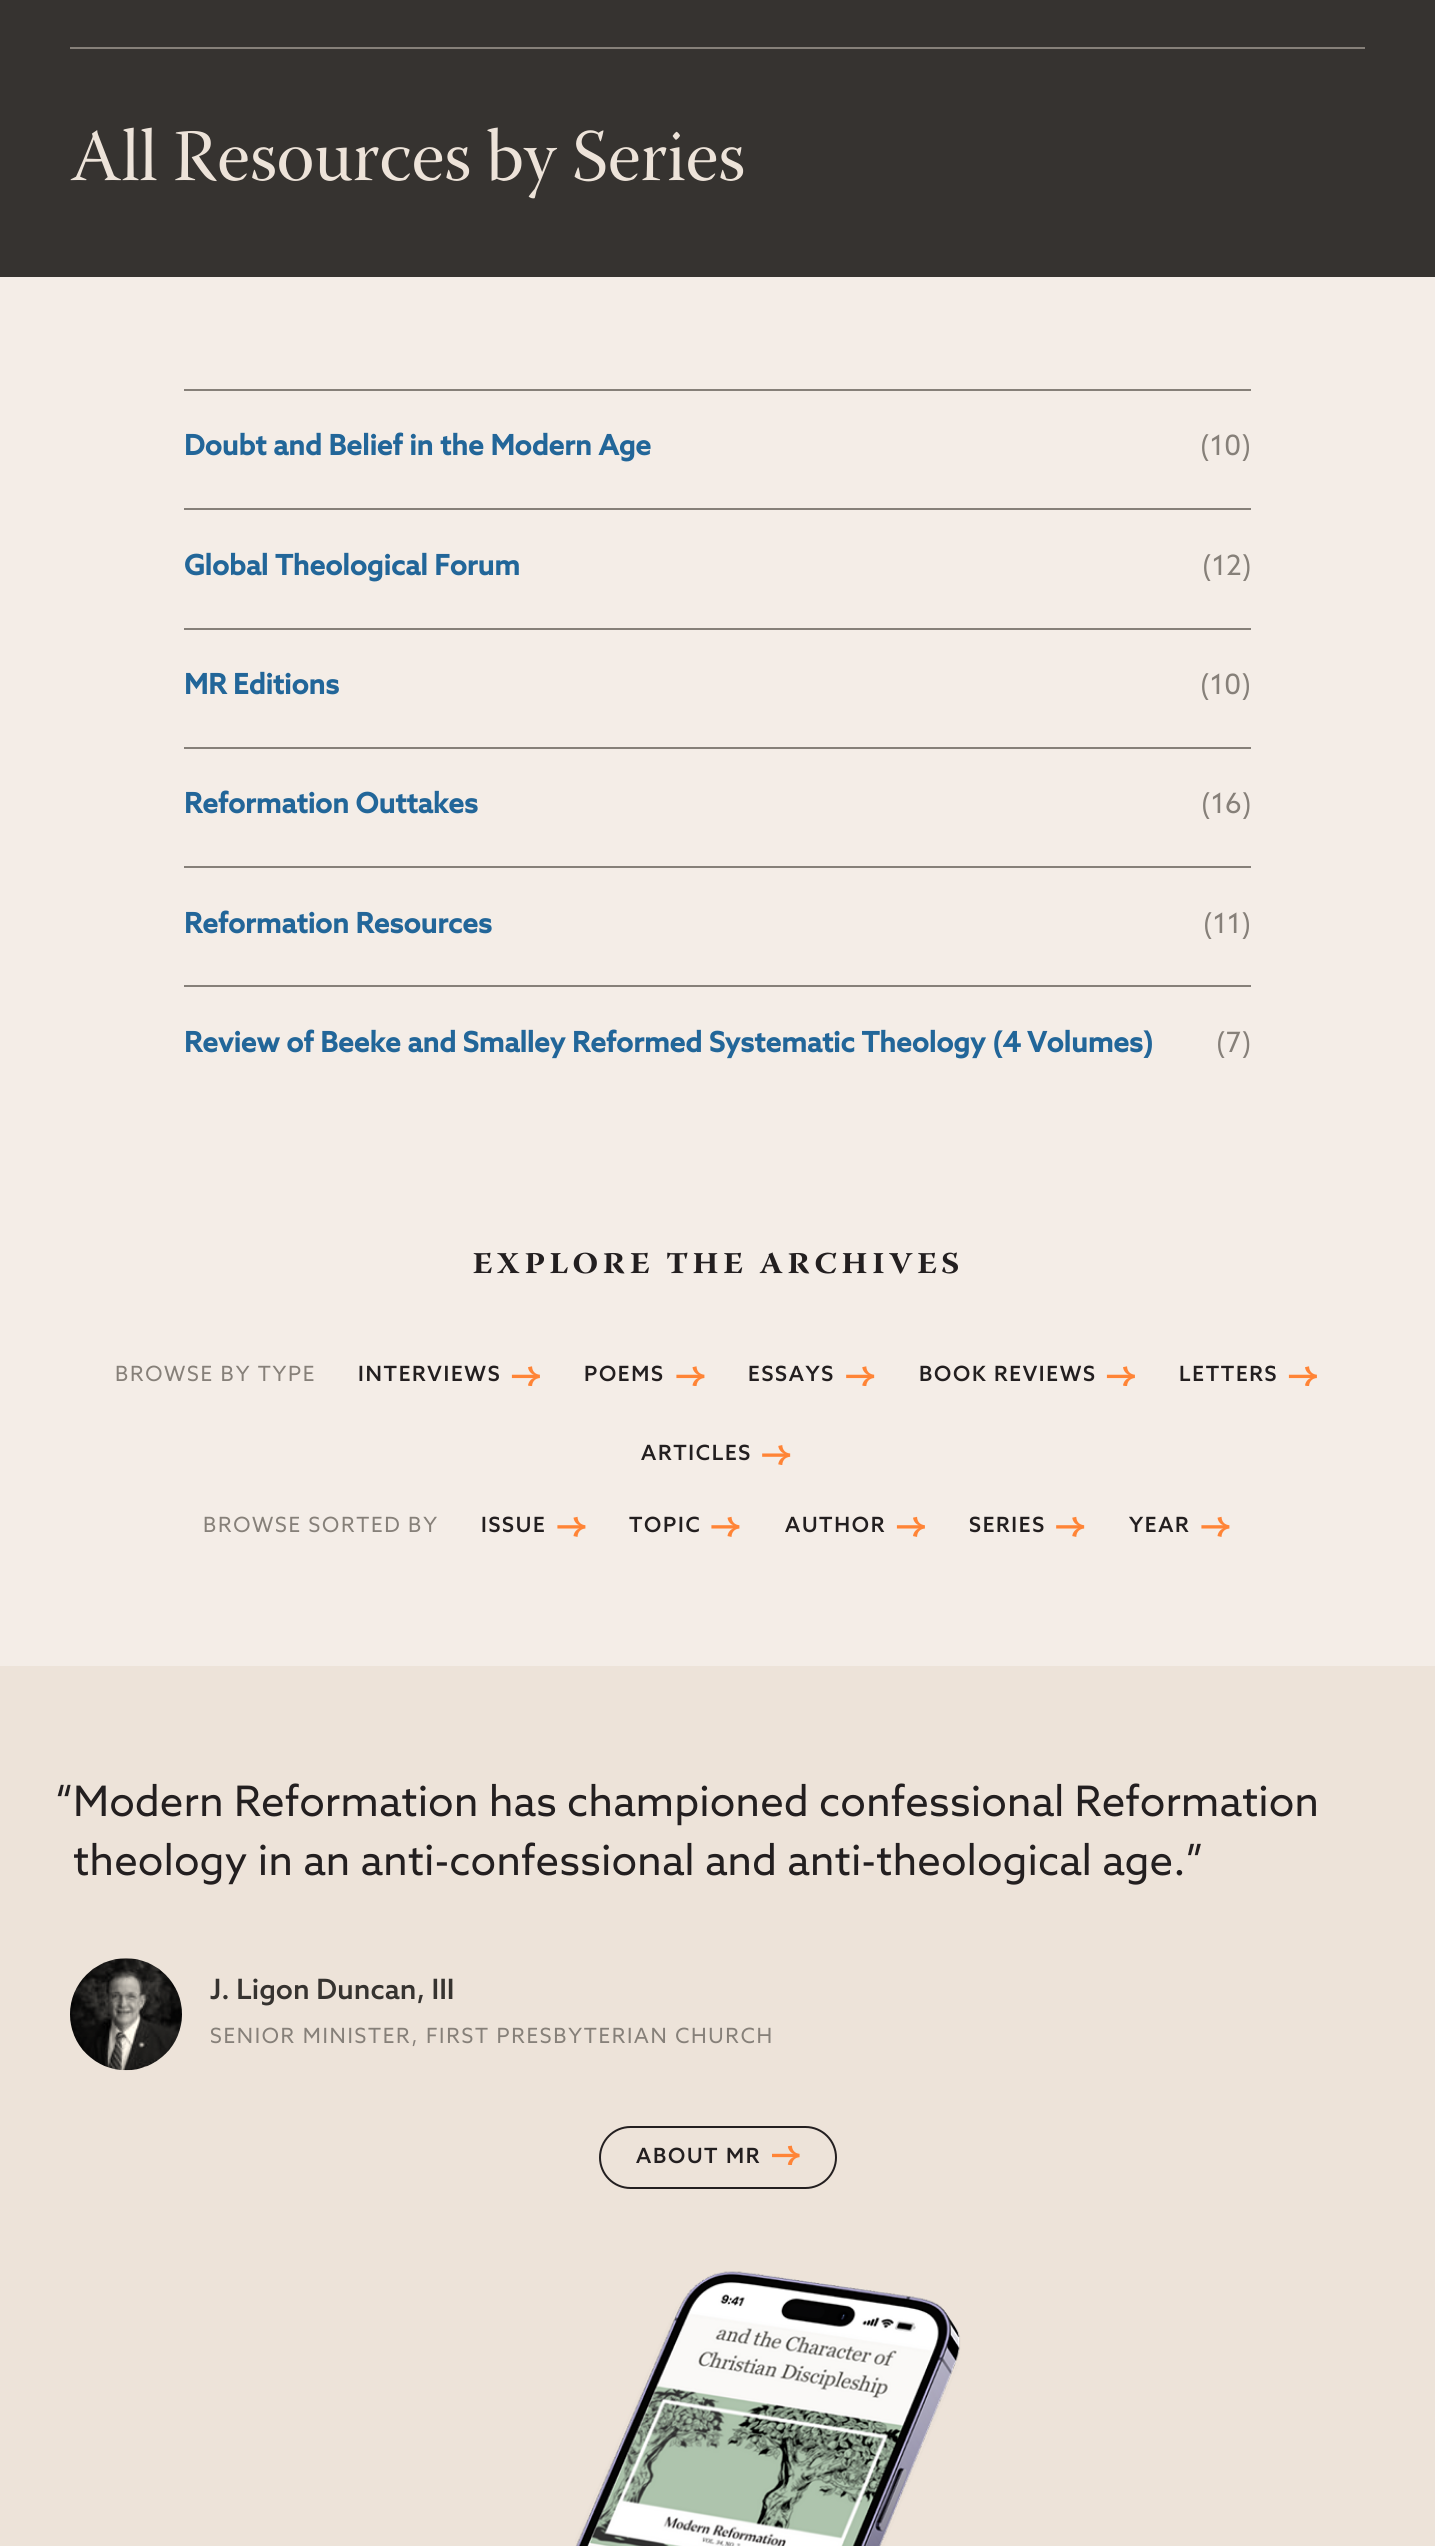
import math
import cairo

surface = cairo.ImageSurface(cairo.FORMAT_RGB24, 1435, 2546)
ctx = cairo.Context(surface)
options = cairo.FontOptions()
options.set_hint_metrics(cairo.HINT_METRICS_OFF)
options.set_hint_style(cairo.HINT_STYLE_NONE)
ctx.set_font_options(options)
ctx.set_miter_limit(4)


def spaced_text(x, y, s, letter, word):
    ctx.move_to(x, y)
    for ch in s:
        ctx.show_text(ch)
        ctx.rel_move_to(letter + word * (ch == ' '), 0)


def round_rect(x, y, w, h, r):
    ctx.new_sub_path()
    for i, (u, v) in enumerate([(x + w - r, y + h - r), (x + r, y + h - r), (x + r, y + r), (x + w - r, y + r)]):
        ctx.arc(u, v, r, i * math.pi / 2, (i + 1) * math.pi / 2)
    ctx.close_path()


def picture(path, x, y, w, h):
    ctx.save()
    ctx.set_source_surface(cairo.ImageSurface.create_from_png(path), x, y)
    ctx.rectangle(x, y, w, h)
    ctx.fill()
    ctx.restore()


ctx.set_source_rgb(0.957, 0.929, 0.906)
ctx.paint()
ctx.set_source_rgb(0.212, 0.2, 0.188)
ctx.rectangle(0, 0, 1435, 277)
ctx.fill()
ctx.set_source_rgb(0.525, 0.502, 0.475)
ctx.rectangle(70, 47, 1295, 2)
ctx.fill()
ctx.select_font_face("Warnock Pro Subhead")
ctx.set_font_size(73.5)
ctx.set_source_rgb(0.929, 0.89, 0.851)
ctx.move_to(70, 180)
ctx.show_text("All Resources by Series")
ctx.set_source_rgb(0.525, 0.502, 0.475)
ctx.rectangle(184, 389, 1067, 2)
ctx.fill()
ctx.rectangle(184, 508, 1067, 2)
ctx.fill()
ctx.select_font_face("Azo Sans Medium", cairo.FONT_SLANT_NORMAL, cairo.FONT_WEIGHT_BOLD)
ctx.set_font_size(28)
ctx.set_source_rgb(0.133, 0.4, 0.6)
ctx.move_to(184, 455)
ctx.show_text("Doubt and Belief in the Modern Age")
ctx.select_font_face("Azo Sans")
ctx.set_source_rgb(0.525, 0.502, 0.475)
ctx.move_to(1200, 455)
ctx.show_text("(10)")
ctx.rectangle(184, 628, 1067, 2)
ctx.fill()
ctx.select_font_face("Azo Sans Medium", cairo.FONT_SLANT_NORMAL, cairo.FONT_WEIGHT_BOLD)
ctx.set_source_rgb(0.133, 0.4, 0.6)
ctx.move_to(184, 575)
ctx.show_text("Global Theological Forum")
ctx.select_font_face("Azo Sans")
ctx.set_source_rgb(0.525, 0.502, 0.475)
ctx.move_to(1202, 575)
ctx.show_text("(12)")
ctx.rectangle(184, 747, 1067, 2)
ctx.fill()
ctx.select_font_face("Azo Sans Medium", cairo.FONT_SLANT_NORMAL, cairo.FONT_WEIGHT_BOLD)
ctx.set_source_rgb(0.133, 0.4, 0.6)
ctx.move_to(184, 694)
ctx.show_text("MR Editions")
ctx.select_font_face("Azo Sans")
ctx.set_source_rgb(0.525, 0.502, 0.475)
ctx.move_to(1200, 694)
ctx.show_text("(10)")
ctx.rectangle(184, 866, 1067, 2)
ctx.fill()
ctx.select_font_face("Azo Sans Medium", cairo.FONT_SLANT_NORMAL, cairo.FONT_WEIGHT_BOLD)
ctx.set_source_rgb(0.133, 0.4, 0.6)
ctx.move_to(184, 813)
ctx.show_text("Reformation Outtakes")
ctx.select_font_face("Azo Sans")
ctx.set_source_rgb(0.525, 0.502, 0.475)
ctx.move_to(1201, 813)
ctx.show_text("(16)")
ctx.rectangle(184, 985, 1067, 2)
ctx.fill()
ctx.select_font_face("Azo Sans Medium", cairo.FONT_SLANT_NORMAL, cairo.FONT_WEIGHT_BOLD)
ctx.set_source_rgb(0.133, 0.4, 0.6)
ctx.move_to(184, 933)
ctx.show_text("Reformation Resources")
ctx.select_font_face("Azo Sans")
ctx.set_source_rgb(0.525, 0.502, 0.475)
ctx.move_to(1203, 933)
ctx.show_text("(11)")
ctx.select_font_face("Azo Sans Medium", cairo.FONT_SLANT_NORMAL, cairo.FONT_WEIGHT_BOLD)
ctx.set_source_rgb(0.133, 0.4, 0.6)
ctx.move_to(184, 1052)
ctx.show_text("Review of Beeke and Smalley Reformed Systematic Theology (4 Volumes)")
ctx.select_font_face("Azo Sans")
ctx.set_source_rgb(0.525, 0.502, 0.475)
ctx.move_to(1216, 1052)
ctx.show_text("(7)")
ctx.select_font_face("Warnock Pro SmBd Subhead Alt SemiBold")
ctx.set_font_size(42)
ctx.set_source_rgb(0.137, 0.122, 0.125)
spaced_text(472, 1273, "explore the archives", 3.4, 0)
ctx.select_font_face("Azo Sans")
ctx.set_font_size(21)
ctx.set_source_rgb(0.525, 0.502, 0.475)
spaced_text(115, 1381, "BROWSE BY TYPE", 1.7, 0)
ctx.select_font_face("Azo Sans Medium Medium")
ctx.set_source_rgb(0.137, 0.122, 0.125)
spaced_text(358, 1381, "INTERVIEWS", 1.7, 0)
picture("img1.png", 511, 1366, 29, 20)
spaced_text(584, 1381, "POEMS", 1.7, 0)
picture("img2.png", 676, 1366, 29, 20)
spaced_text(748, 1381, "ESSAYS", 1.7, 0)
picture("img3.png", 846, 1366, 29, 20)
spaced_text(919, 1381, "BOOK REVIEWS", 1.7, 0)
picture("img1.png", 1106, 1366, 29, 20)
spaced_text(1179, 1381, "LETTERS", 1.7, 0)
picture("img1.png", 1288, 1366, 29, 20)
spaced_text(641, 1460, "ARTICLES", 1.7, 0)
picture("img4.png", 762, 1445, 29, 20)
ctx.select_font_face("Azo Sans")
ctx.set_source_rgb(0.525, 0.502, 0.475)
spaced_text(203, 1532, "BROWSE SORTED BY", 1.7, 0)
ctx.select_font_face("Azo Sans Medium Medium")
ctx.set_source_rgb(0.137, 0.122, 0.125)
spaced_text(481, 1532, "ISSUE", 1.7, 0)
picture("img5.png", 557, 1516, 29, 21)
spaced_text(629, 1532, "TOPIC", 1.7, 0)
picture("img5.png", 711, 1516, 29, 21)
spaced_text(785, 1532, "AUTHOR", 1.7, 0)
picture("img6.png", 896, 1516, 29, 21)
spaced_text(969, 1532, "SERIES", 1.7, 0)
picture("img7.png", 1056, 1516, 29, 21)
spaced_text(1129, 1532, "YEAR", 1.7, 0)
picture("img5.png", 1201, 1516, 29, 21)
ctx.set_source_rgb(0.929, 0.89, 0.851)
ctx.rectangle(0, 1666, 1435, 880)
ctx.fill()
ctx.select_font_face("Azo Sans")
ctx.set_font_size(42)
ctx.set_source_rgb(0.137, 0.122, 0.125)
ctx.move_to(55, 1816)
ctx.show_text("“Modern Reformation has championed confessional Reformation")
ctx.move_to(73, 1875)
ctx.show_text("theology in an anti-confessional and anti-theological age.”")
picture("img8.png", 70, 1958, 112, 113)
ctx.select_font_face("Azo Sans Medium Medium")
ctx.set_font_size(28)
ctx.set_source_rgb(0.212, 0.2, 0.188)
ctx.move_to(210, 1999)
ctx.show_text("J. Ligon Duncan, III")
ctx.select_font_face("Azo Sans")
ctx.set_font_size(21)
ctx.set_source_rgb(0.525, 0.502, 0.475)
spaced_text(210, 2043, "SENIOR MINISTER, FIRST PRESBYTERIAN CHURCH", 1.7, 0)
round_rect(600, 2127, 236, 61, 30.5)
ctx.set_source_rgb(0.137, 0.122, 0.125)
ctx.stroke()
ctx.select_font_face("Azo Sans Medium Medium")
spaced_text(636, 2163, "ABOUT MR", 1.7, 0)
picture("img9.png", 772, 2145, 28, 20)
picture("img10.png", 575, 2271, 386, 275)
surface.write_to_png("page.png")
